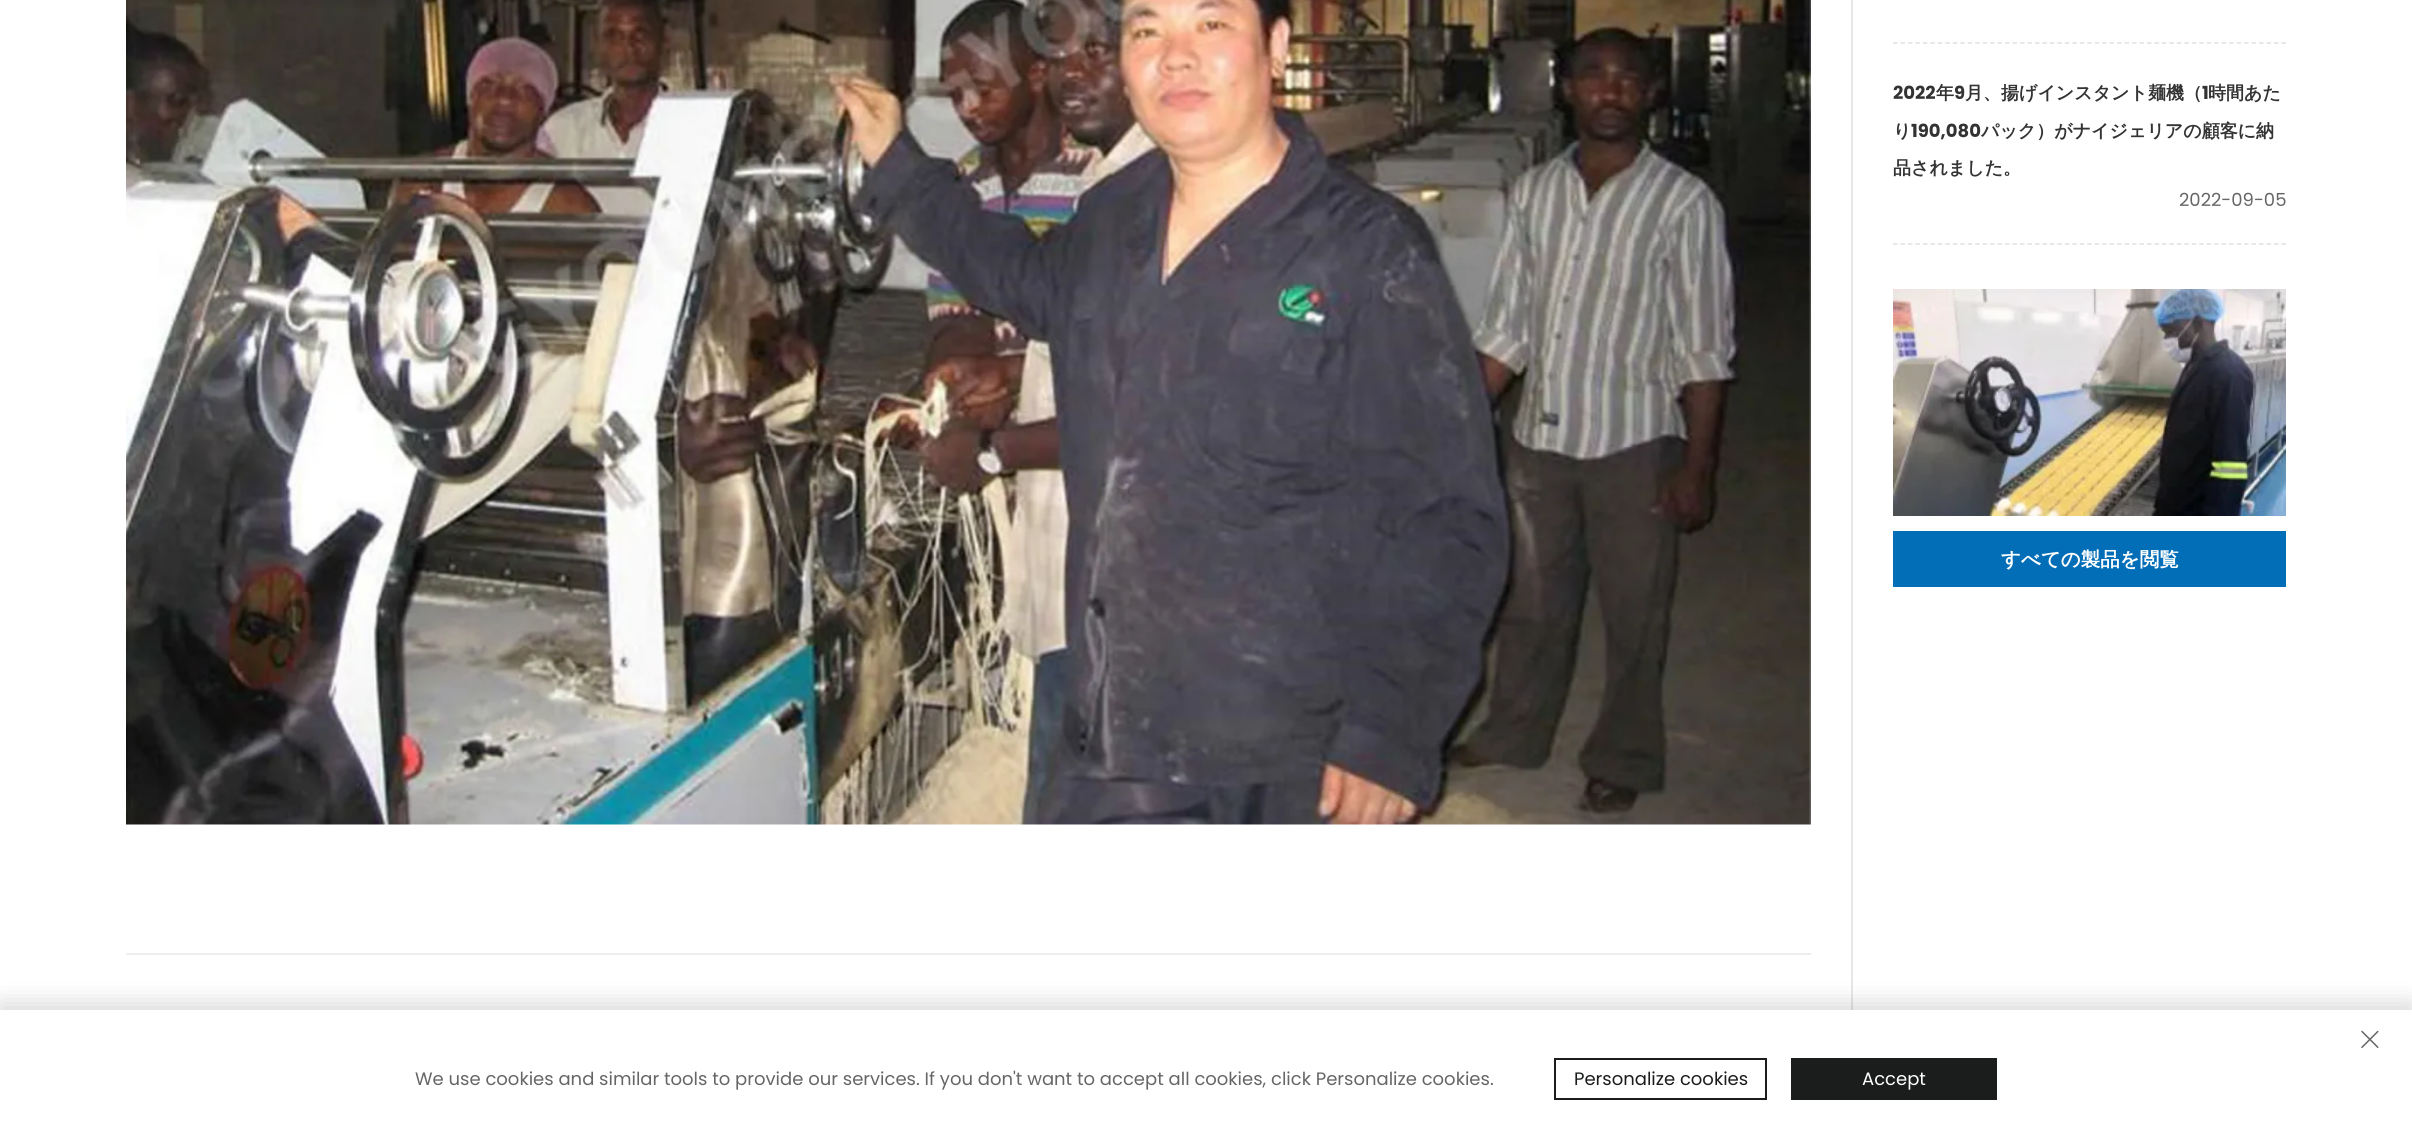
import math
import cairo

surface = cairo.ImageSurface(cairo.FORMAT_RGB24, 2412, 1123)
ctx = cairo.Context(surface)
options = cairo.FontOptions()
options.set_hint_metrics(cairo.HINT_METRICS_OFF)
options.set_hint_style(cairo.HINT_STYLE_NONE)
ctx.set_font_options(options)
ctx.set_miter_limit(4)


def round_rect(x, y, w, h, r):
    ctx.new_sub_path()
    for i, (u, v) in enumerate([(x + w - r, y + h - r), (x + r, y + h - r), (x + r, y + r), (x + w - r, y + r)]):
        ctx.arc(u, v, r, i * math.pi / 2, (i + 1) * math.pi / 2)
    ctx.close_path()


def shadow(x, y, w, h, r, blur, alpha):
    ctx.push_group_with_content(cairo.CONTENT_ALPHA)
    ctx.set_operator(cairo.OPERATOR_SOURCE)
    for i in range(15, -16, -2):
        e = blur * i / 6
        if min(w, h) + 2 * e > 0:
            ctx.set_source_rgba(0, 0, 0, alpha * math.erfc((i - 1) / 8.5) / 2)
            round_rect(x - e, y - e, w + 2 * e, h + 2 * e, max(0, min(r + e + blur * .6, min(w, h) / 2 + e)))
            ctx.fill()
    ctx.mask(ctx.pop_group())


def picture(path, x, y, w, h):
    ctx.save()
    ctx.set_source_surface(cairo.ImageSurface.create_from_png(path), x, y)
    ctx.rectangle(x, y, w, h)
    ctx.fill()
    ctx.restore()


ctx.set_source_rgb(1, 1, 1)
ctx.paint()
picture("img1.png", 126, 0, 1685, 825)
ctx.set_source_rgb(0.933, 0.933, 0.933)
ctx.rectangle(126, 953, 1685, 2)
ctx.fill()
ctx.set_source_rgb(0.906, 0.906, 0.906)
ctx.rectangle(1851, 0, 2, 1010)
ctx.fill()
ctx.new_path()
ctx.move_to(1893, 43)
ctx.line_to(2286, 43)
ctx.set_source_rgb(0.882, 0.882, 0.882)
ctx.set_line_width(1.5)
ctx.set_dash([4.5, 2.97])
ctx.stroke()
ctx.new_path()
ctx.move_to(1893, 244)
ctx.line_to(2286, 244)
ctx.stroke()
ctx.select_font_face("Poppins", cairo.FONT_SLANT_NORMAL, cairo.FONT_WEIGHT_BOLD)
ctx.set_font_size(18)
ctx.set_source_rgb(0.2, 0.2, 0.2)
ctx.move_to(1893, 99)
ctx.show_text("2022")
ctx.select_font_face("WenQuanYi Zen Hei", cairo.FONT_SLANT_NORMAL, cairo.FONT_WEIGHT_BOLD)
ctx.move_to(1936, 99)
ctx.show_text("年")
ctx.select_font_face("Poppins", cairo.FONT_SLANT_NORMAL, cairo.FONT_WEIGHT_BOLD)
ctx.move_to(1954, 99)
ctx.show_text("9")
ctx.select_font_face("WenQuanYi Zen Hei", cairo.FONT_SLANT_NORMAL, cairo.FONT_WEIGHT_BOLD)
ctx.move_to(1965, 99)
ctx.show_text("月、揚げインスタント麺機（")
ctx.select_font_face("Poppins", cairo.FONT_SLANT_NORMAL, cairo.FONT_WEIGHT_BOLD)
ctx.move_to(2202, 99)
ctx.show_text("1")
ctx.select_font_face("WenQuanYi Zen Hei", cairo.FONT_SLANT_NORMAL, cairo.FONT_WEIGHT_BOLD)
ctx.move_to(2208, 99)
ctx.show_text("時間あた")
ctx.move_to(1893, 137)
ctx.show_text("り")
ctx.select_font_face("Poppins", cairo.FONT_SLANT_NORMAL, cairo.FONT_WEIGHT_BOLD)
ctx.move_to(1911, 137)
ctx.show_text("190,080")
ctx.select_font_face("WenQuanYi Zen Hei", cairo.FONT_SLANT_NORMAL, cairo.FONT_WEIGHT_BOLD)
ctx.move_to(1981, 137)
ctx.show_text("パック）がナイジェリアの顧客に納")
ctx.move_to(1893, 174)
ctx.show_text("品されました。")
ctx.select_font_face("Poppins")
ctx.set_source_rgb(0.4, 0.4, 0.4)
ctx.move_to(2179, 206)
ctx.show_text("2022-09-05")
picture("img2.png", 1893, 289, 393, 227)
ctx.set_source_rgb(0.008, 0.431, 0.718)
ctx.rectangle(1893, 531, 393, 56)
ctx.fill()
ctx.select_font_face("WenQuanYi Zen Hei", cairo.FONT_SLANT_NORMAL, cairo.FONT_WEIGHT_BOLD)
ctx.set_font_size(19.5)
ctx.set_source_rgb(1, 1, 1)
ctx.move_to(2001, 566)
ctx.show_text("すべての製品を閲覧")
ctx.set_source_rgb(0, 0, 0)
shadow(0, 1004, 2412, 114, 0, 12, 0.16)
ctx.set_source_rgb(1, 1, 1)
ctx.rectangle(0, 1010, 2412, 113)
ctx.fill()
picture("img3.png", 2361, 1030, 18, 18)
ctx.select_font_face("Poppins")
ctx.set_font_size(18)
ctx.set_source_rgb(0.4, 0.4, 0.4)
ctx.move_to(415, 1085)
ctx.show_text("We use cookies and similar tools to provide our services. If you don't want to accept all cookies, click Personalize cookies.")
ctx.rectangle(1555, 1059, 211, 40)
ctx.set_source_rgb(0.106, 0.11, 0.11)
ctx.set_line_width(2)
ctx.set_dash([])
ctx.stroke()
ctx.move_to(1574, 1085)
ctx.show_text("Personalize cookies")
ctx.rectangle(1791, 1058, 206, 42)
ctx.fill()
ctx.set_source_rgb(1, 1, 1)
ctx.move_to(1862, 1085)
ctx.show_text("Accept")
surface.write_to_png("page.png")
